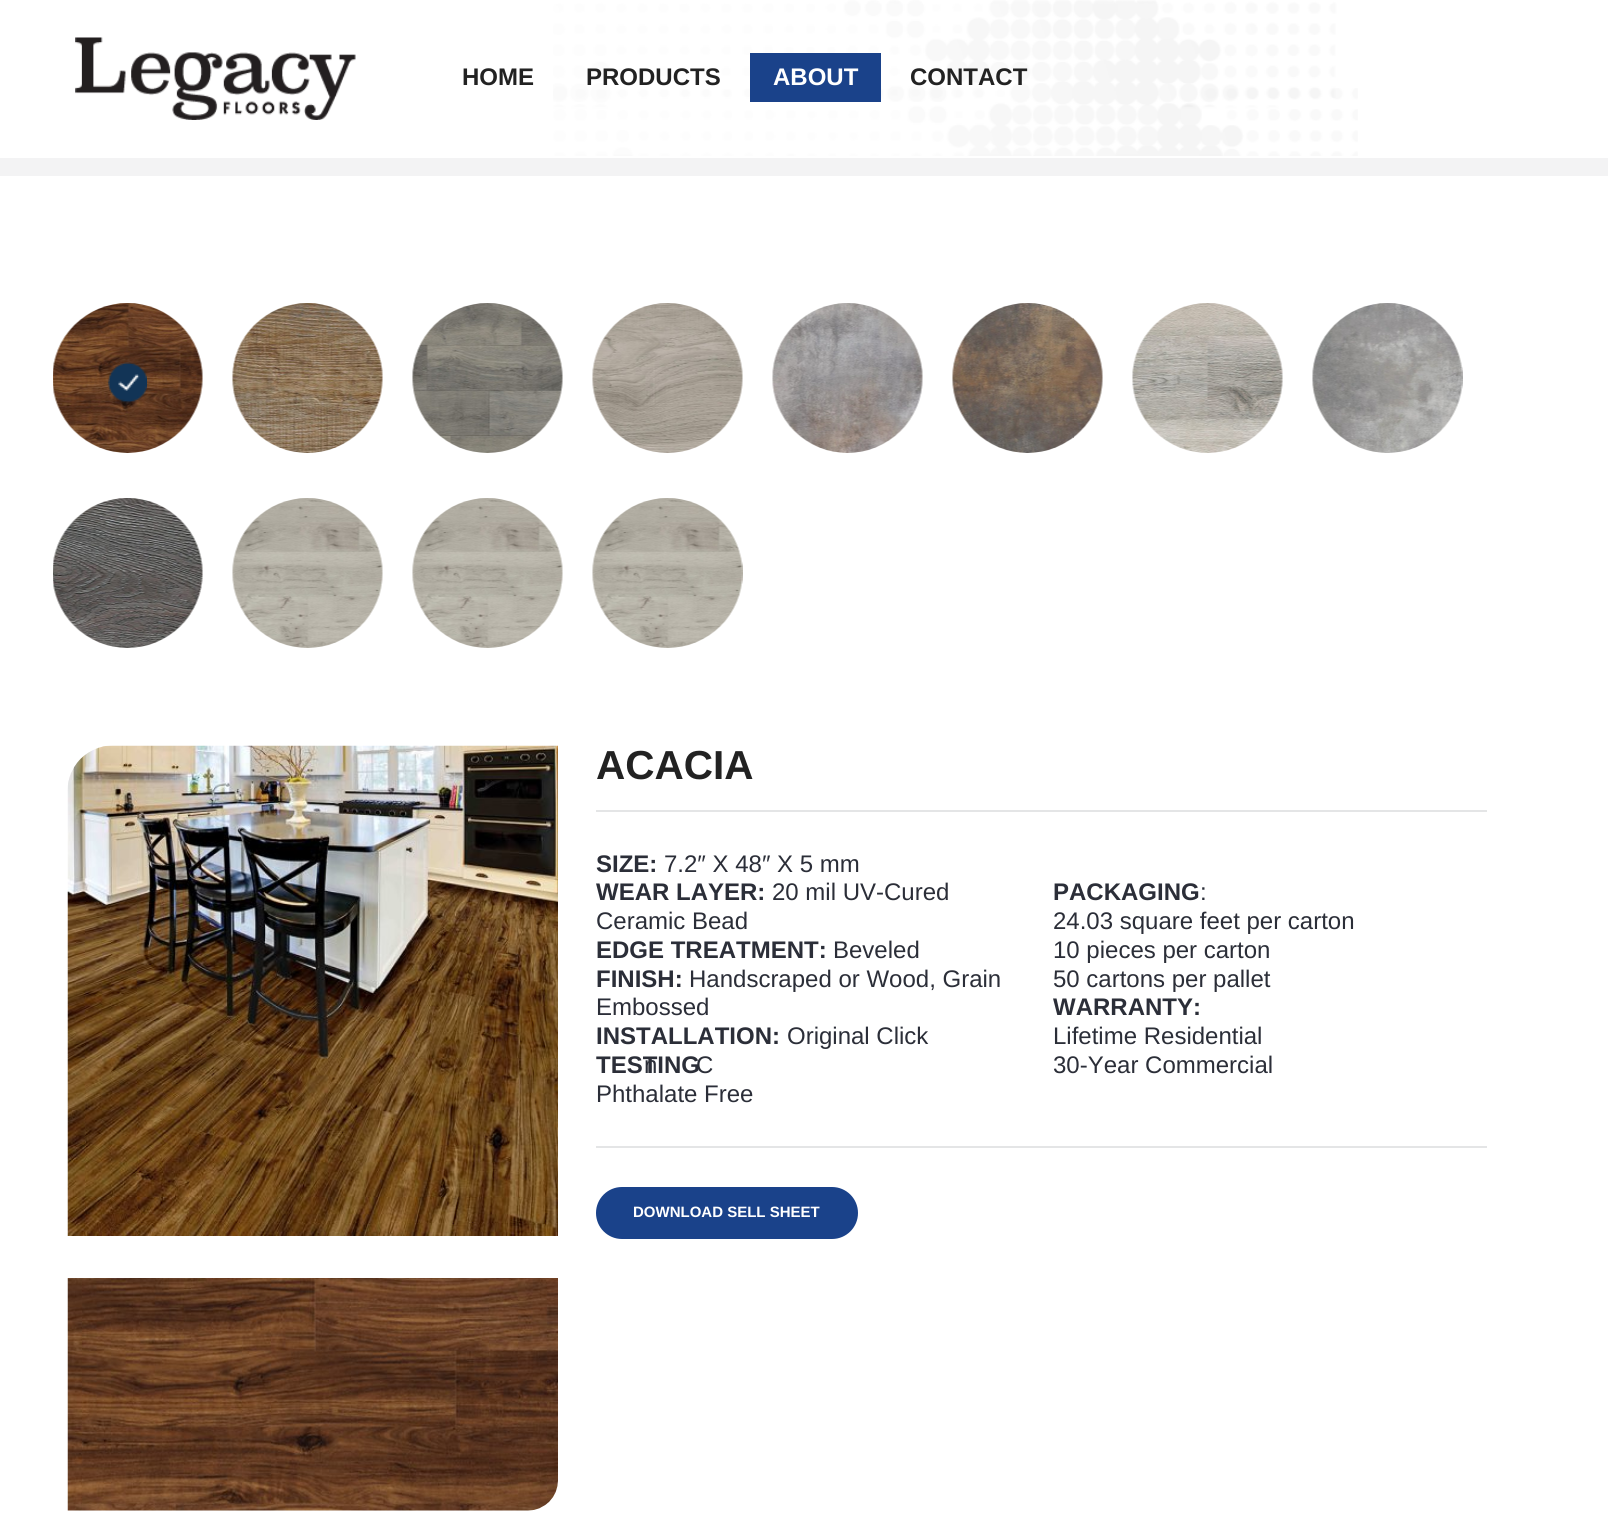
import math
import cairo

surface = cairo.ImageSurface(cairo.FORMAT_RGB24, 1608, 1534)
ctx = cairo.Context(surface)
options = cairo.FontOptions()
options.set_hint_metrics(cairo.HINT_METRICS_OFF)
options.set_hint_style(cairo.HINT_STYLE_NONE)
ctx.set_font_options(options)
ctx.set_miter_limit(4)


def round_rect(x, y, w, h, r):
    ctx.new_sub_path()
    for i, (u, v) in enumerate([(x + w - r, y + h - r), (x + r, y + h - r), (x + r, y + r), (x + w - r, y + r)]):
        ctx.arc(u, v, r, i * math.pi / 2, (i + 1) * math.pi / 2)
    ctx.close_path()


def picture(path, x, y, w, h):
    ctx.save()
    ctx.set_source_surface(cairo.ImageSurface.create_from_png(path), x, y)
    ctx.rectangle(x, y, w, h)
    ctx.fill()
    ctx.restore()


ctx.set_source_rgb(1, 1, 1)
ctx.paint()
picture("img1.png", 553, 0, 805, 156)
picture("img2.png", 75, 37, 281, 83)
ctx.select_font_face("Liberation Sans", cairo.FONT_SLANT_NORMAL, cairo.FONT_WEIGHT_BOLD)
ctx.set_font_size(24)
ctx.set_source_rgb(0.133, 0.133, 0.133)
ctx.move_to(462, 85)
ctx.show_text("HOME")
ctx.move_to(586, 85)
ctx.show_text("PRODUCTS")
ctx.set_source_rgb(0.102, 0.259, 0.541)
ctx.rectangle(750, 53, 131, 49)
ctx.fill()
ctx.set_source_rgb(1, 1, 1)
ctx.move_to(773, 85)
ctx.show_text("ABOUT")
ctx.set_source_rgb(0.133, 0.133, 0.133)
ctx.move_to(910, 85)
ctx.show_text("CONTACT")
ctx.set_source_rgb(0.953, 0.953, 0.957)
ctx.rectangle(0, 158, 1608, 18)
ctx.fill()
picture("img3.png", 53, 303, 150, 150)
picture("img4.png", 108, 362, 39, 41)
picture("img5.png", 232, 303, 151, 150)
picture("img6.png", 412, 303, 151, 150)
picture("img7.png", 592, 303, 151, 150)
picture("img8.png", 772, 303, 151, 150)
picture("img9.png", 952, 303, 151, 150)
picture("img10.png", 1132, 303, 151, 150)
picture("img11.png", 1312, 303, 151, 150)
picture("img12.png", 53, 498, 150, 150)
picture("img13.png", 232, 498, 151, 150)
picture("img13.png", 412, 498, 151, 150)
picture("img14.png", 592, 498, 151, 150)
picture("img15.png", 67, 745, 491, 491)
picture("img16.png", 67, 1278, 491, 233)
ctx.set_font_size(40.5)
ctx.set_source_rgb(0.133, 0.133, 0.133)
ctx.move_to(596, 779)
ctx.show_text("ACACIA")
ctx.set_source_rgb(0.894, 0.898, 0.902)
ctx.rectangle(596, 810, 891, 2)
ctx.fill()
ctx.rectangle(596, 1146, 891, 2)
ctx.fill()
ctx.set_font_size(24)
ctx.set_source_rgb(0.169, 0.18, 0.22)
ctx.move_to(596, 872)
ctx.show_text("SIZE:")
ctx.select_font_face("Liberation Sans")
ctx.move_to(664, 872)
ctx.show_text("7.2″ X 48″ X 5 mm")
ctx.select_font_face("Liberation Sans", cairo.FONT_SLANT_NORMAL, cairo.FONT_WEIGHT_BOLD)
ctx.move_to(596, 900)
ctx.show_text("WEAR LAYER:")
ctx.select_font_face("Liberation Sans")
ctx.move_to(772, 900)
ctx.show_text("20 mil UV-Cured")
ctx.move_to(596, 929)
ctx.show_text("Ceramic Bead")
ctx.select_font_face("Liberation Sans", cairo.FONT_SLANT_NORMAL, cairo.FONT_WEIGHT_BOLD)
ctx.move_to(1053, 900)
ctx.show_text("PACKAGING")
ctx.select_font_face("Liberation Sans")
ctx.move_to(1200, 900)
ctx.show_text(":")
ctx.move_to(1053, 929)
ctx.show_text("24.03 square feet per carton")
ctx.move_to(1053, 958)
ctx.show_text("10 pieces per carton")
ctx.move_to(1053, 987)
ctx.show_text("50 cartons per pallet")
ctx.select_font_face("Liberation Sans", cairo.FONT_SLANT_NORMAL, cairo.FONT_WEIGHT_BOLD)
ctx.move_to(596, 958)
ctx.show_text("EDGE TREATMENT:")
ctx.select_font_face("Liberation Sans")
ctx.move_to(833, 958)
ctx.show_text("Beveled")
ctx.select_font_face("Liberation Sans", cairo.FONT_SLANT_NORMAL, cairo.FONT_WEIGHT_BOLD)
ctx.move_to(596, 987)
ctx.show_text("FINISH:")
ctx.select_font_face("Liberation Sans")
ctx.move_to(689, 987)
ctx.show_text("Handscraped or Wood, Grain")
ctx.move_to(596, 1015)
ctx.show_text("Embossed")
ctx.select_font_face("Liberation Sans", cairo.FONT_SLANT_NORMAL, cairo.FONT_WEIGHT_BOLD)
ctx.move_to(596, 1044)
ctx.show_text("INSTALLATION:")
ctx.select_font_face("Liberation Sans")
ctx.move_to(787, 1044)
ctx.show_text("Original Click")
ctx.select_font_face("Liberation Sans", cairo.FONT_SLANT_NORMAL, cairo.FONT_WEIGHT_BOLD)
ctx.move_to(1053, 1015)
ctx.show_text("WARRANTY:")
ctx.select_font_face("Liberation Sans")
ctx.move_to(1053, 1044)
ctx.show_text("Lifetime Residential")
ctx.move_to(1053, 1073)
ctx.show_text("30-Year Commercial")
ctx.select_font_face("Liberation Sans", cairo.FONT_SLANT_NORMAL, cairo.FONT_WEIGHT_BOLD)
ctx.move_to(596, 1073)
ctx.show_text("TESTING")
ctx.select_font_face("Liberation Sans")
ctx.move_to(696, 1073)
ctx.show_text("C")
ctx.move_to(644, 1073)
ctx.show_text("n")
ctx.move_to(596, 1102)
ctx.show_text("Phthalate Free")
ctx.set_source_rgb(0.102, 0.259, 0.541)
round_rect(596, 1187, 262, 52, 26)
ctx.fill()
ctx.select_font_face("Liberation Sans", cairo.FONT_SLANT_NORMAL, cairo.FONT_WEIGHT_BOLD)
ctx.set_font_size(15)
ctx.set_source_rgb(1, 1, 1)
ctx.move_to(633, 1217)
ctx.show_text("DOWNLOAD SELL SHEET")
surface.write_to_png("page.png")
